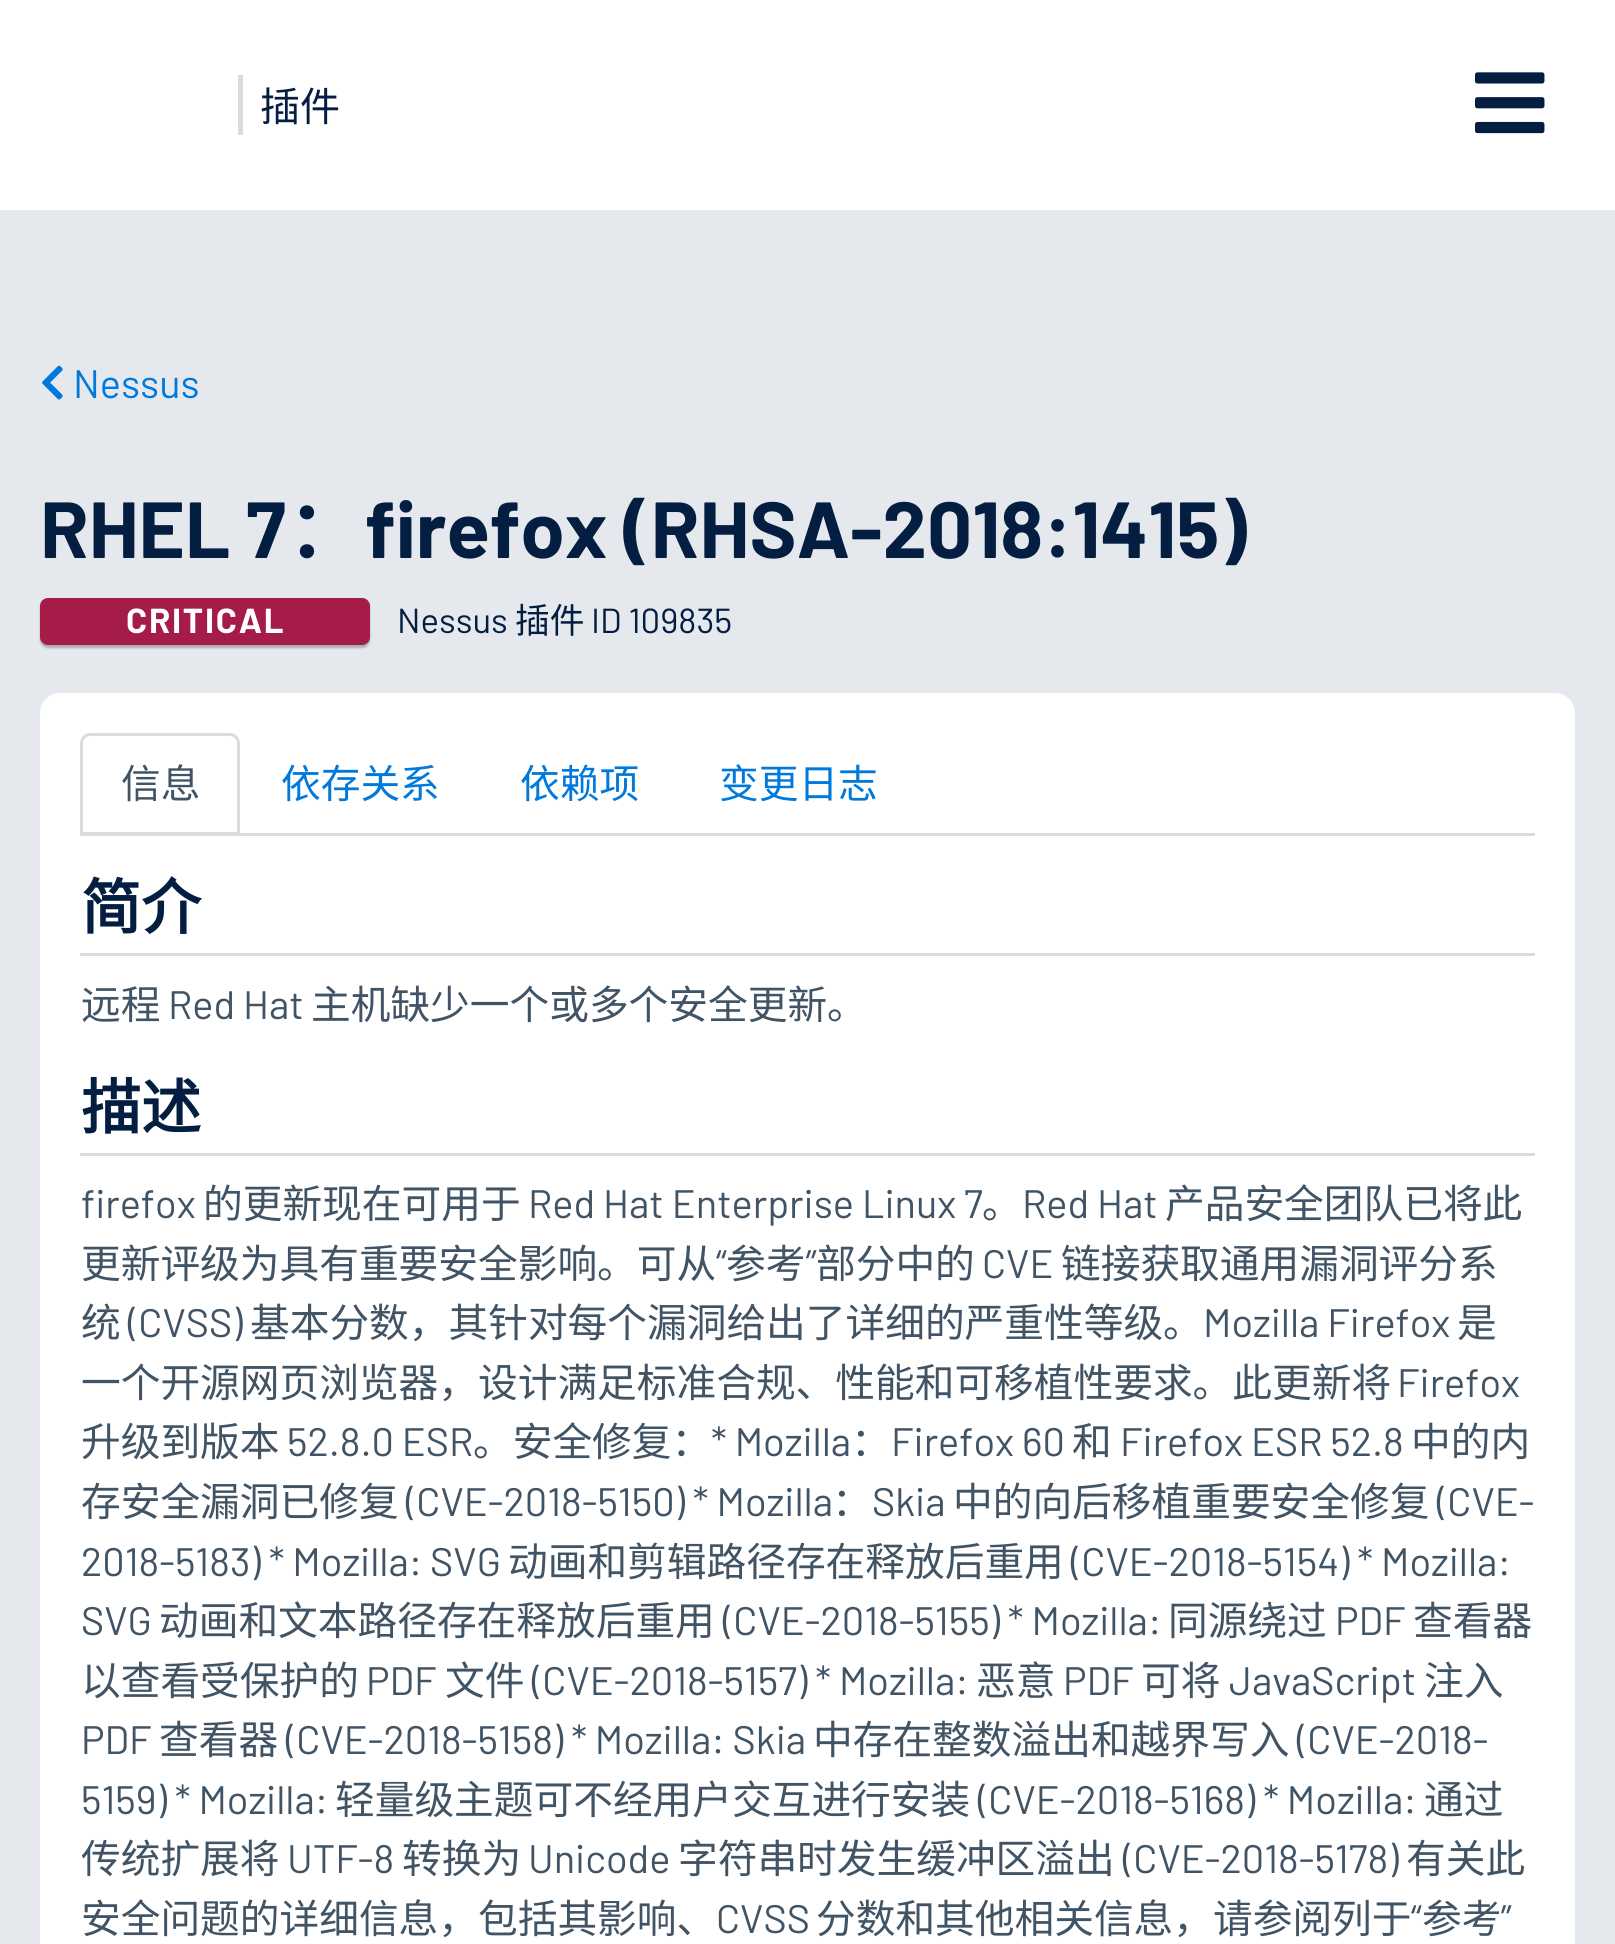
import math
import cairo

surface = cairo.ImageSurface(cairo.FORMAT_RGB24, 1615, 1944)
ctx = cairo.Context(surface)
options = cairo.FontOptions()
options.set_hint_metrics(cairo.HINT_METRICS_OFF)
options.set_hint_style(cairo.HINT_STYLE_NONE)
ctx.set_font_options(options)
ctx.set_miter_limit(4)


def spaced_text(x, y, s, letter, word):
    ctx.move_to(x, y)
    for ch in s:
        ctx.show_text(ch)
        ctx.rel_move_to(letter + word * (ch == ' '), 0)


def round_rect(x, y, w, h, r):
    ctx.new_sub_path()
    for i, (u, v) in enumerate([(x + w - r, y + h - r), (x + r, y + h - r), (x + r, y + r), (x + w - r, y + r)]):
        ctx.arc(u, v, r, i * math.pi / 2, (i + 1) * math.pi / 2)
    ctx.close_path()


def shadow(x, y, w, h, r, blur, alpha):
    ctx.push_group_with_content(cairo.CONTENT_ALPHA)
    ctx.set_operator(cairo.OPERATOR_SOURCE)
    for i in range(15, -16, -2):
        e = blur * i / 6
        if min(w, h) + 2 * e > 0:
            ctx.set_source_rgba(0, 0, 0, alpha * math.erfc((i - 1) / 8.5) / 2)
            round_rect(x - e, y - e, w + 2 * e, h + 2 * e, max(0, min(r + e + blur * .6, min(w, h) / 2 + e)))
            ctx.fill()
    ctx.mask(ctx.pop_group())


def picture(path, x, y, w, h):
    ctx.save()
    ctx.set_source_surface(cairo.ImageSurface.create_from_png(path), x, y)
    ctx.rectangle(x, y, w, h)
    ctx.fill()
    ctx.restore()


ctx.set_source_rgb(1, 1, 1)
ctx.paint()
ctx.set_source_rgb(0.851, 0.859, 0.878)
ctx.rectangle(238, 75, 5, 60)
ctx.fill()
ctx.select_font_face("Noto Sans CJK SC")
ctx.set_font_size(40)
ctx.set_source_rgb(0.016, 0.118, 0.259)
ctx.move_to(260, 121)
ctx.show_text("插件")
picture("img1.png", 1475, 72, 70, 62)
ctx.set_source_rgb(0.898, 0.914, 0.929)
ctx.rectangle(0, 210, 1615, 1734)
ctx.fill()
picture("img2.png", 42, 365, 21, 35)
ctx.select_font_face("Barlow")
ctx.set_font_size(39.7)
ctx.set_source_rgb(0, 0.475, 0.867)
ctx.move_to(73, 398)
ctx.show_text("Nessus")
ctx.select_font_face("Barlow", cairo.FONT_SLANT_NORMAL, cairo.FONT_WEIGHT_BOLD)
ctx.set_font_size(79.4)
ctx.set_source_rgb(0.016, 0.118, 0.259)
ctx.move_to(40, 558)
ctx.show_text("RHEL 7")
ctx.select_font_face("Noto Sans CJK SC", cairo.FONT_SLANT_NORMAL, cairo.FONT_WEIGHT_BOLD)
ctx.move_to(286, 558)
ctx.show_text("：")
ctx.select_font_face("Barlow", cairo.FONT_SLANT_NORMAL, cairo.FONT_WEIGHT_BOLD)
ctx.move_to(365, 558)
ctx.show_text("firefox (RHSA-2018:1415)")
ctx.set_source_rgb(0, 0, 0)
shadow(40, 600, 330, 48, 8, 1, 0.25)
ctx.set_source_rgb(0.647, 0.11, 0.286)
round_rect(40, 598, 330, 47, 8)
ctx.fill()
ctx.set_font_size(34.75)
ctx.set_source_rgb(1, 1, 1)
spaced_text(126, 633, "CRITICAL", 1.75, 0)
ctx.select_font_face("Barlow")
ctx.set_source_rgb(0.016, 0.118, 0.259)
ctx.move_to(397, 633)
ctx.show_text("Nessus")
ctx.select_font_face("Noto Sans CJK SC")
ctx.move_to(515, 633)
ctx.show_text("插件")
ctx.select_font_face("Barlow")
ctx.move_to(591, 633)
ctx.show_text("ID 109835")
ctx.set_source_rgb(1, 1, 1)
round_rect(41.5, 694.5, 1532, 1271, 18.5)
ctx.fill_preserve()
ctx.set_line_width(3)
ctx.stroke()
ctx.set_source_rgb(0.851, 0.859, 0.878)
ctx.rectangle(80, 833, 1455, 3)
ctx.fill()
ctx.set_source_rgb(1, 1, 1)
ctx.new_path()
ctx.move_to(90, 734.5)
ctx.line_to(230, 734.5)
ctx.curve_to(234.5, 734.5, 238.5, 738.5, 238.5, 743)
ctx.line_to(238.5, 833.5)
ctx.line_to(81.5, 833.5)
ctx.line_to(81.5, 743)
ctx.curve_to(81.5, 738.5, 85.5, 734.5, 90, 734.5)
ctx.close_path()
ctx.fill_preserve()
ctx.set_source_rgb(0.851, 0.859, 0.878)
ctx.stroke()
ctx.select_font_face("Noto Sans CJK SC")
ctx.set_font_size(39.7)
ctx.set_source_rgb(0.255, 0.329, 0.396)
ctx.move_to(121, 798)
ctx.show_text("信息")
ctx.set_source_rgb(0, 0.475, 0.867)
ctx.move_to(281, 798)
ctx.show_text("依存关系")
ctx.move_to(520, 798)
ctx.show_text("依赖项")
ctx.move_to(719, 798)
ctx.show_text("变更日志")
ctx.set_source_rgb(0.851, 0.859, 0.878)
ctx.rectangle(80, 953, 1455, 3)
ctx.fill()
ctx.select_font_face("Noto Sans CJK SC", cairo.FONT_SLANT_NORMAL, cairo.FONT_WEIGHT_BOLD)
ctx.set_font_size(60)
ctx.set_source_rgb(0.016, 0.118, 0.259)
ctx.move_to(81, 929)
ctx.show_text("简介")
ctx.select_font_face("Noto Sans CJK SC")
ctx.set_font_size(39.7)
ctx.set_source_rgb(0.255, 0.329, 0.396)
ctx.move_to(81, 1019)
ctx.show_text("远程")
ctx.select_font_face("Barlow")
ctx.move_to(168, 1019)
ctx.show_text("Red Hat")
ctx.select_font_face("Noto Sans CJK SC")
ctx.move_to(311, 1019)
ctx.show_text("主机缺少一个或多个安全更新。")
ctx.set_source_rgb(0.851, 0.859, 0.878)
ctx.rectangle(80, 1153, 1455, 3)
ctx.fill()
ctx.select_font_face("Noto Sans CJK SC", cairo.FONT_SLANT_NORMAL, cairo.FONT_WEIGHT_BOLD)
ctx.set_font_size(60)
ctx.set_source_rgb(0.016, 0.118, 0.259)
ctx.move_to(81, 1129)
ctx.show_text("描述")
ctx.select_font_face("Barlow")
ctx.set_font_size(39.7)
ctx.set_source_rgb(0.255, 0.329, 0.396)
ctx.move_to(81, 1218)
ctx.show_text("firefox")
ctx.select_font_face("Noto Sans CJK SC")
ctx.move_to(203, 1218)
ctx.show_text("的更新现在可用于")
ctx.select_font_face("Barlow")
ctx.move_to(528, 1218)
ctx.show_text("Red Hat Enterprise Linux 7")
ctx.select_font_face("Noto Sans CJK SC")
ctx.move_to(982, 1218)
ctx.show_text("。")
ctx.select_font_face("Barlow")
ctx.move_to(1022, 1218)
ctx.show_text("Red Hat")
ctx.select_font_face("Noto Sans CJK SC")
ctx.move_to(1165, 1218)
ctx.show_text("产品安全团队已将此")
ctx.move_to(81, 1278)
ctx.show_text("更新评级为具有重要安全影响。可从")
ctx.select_font_face("Barlow")
ctx.move_to(716, 1278)
ctx.show_text("“")
ctx.select_font_face("Noto Sans CJK SC")
ctx.move_to(726, 1278)
ctx.show_text("参考")
ctx.select_font_face("Barlow")
ctx.move_to(806, 1278)
ctx.show_text("”")
ctx.select_font_face("Noto Sans CJK SC")
ctx.move_to(816, 1278)
ctx.show_text("部分中的")
ctx.select_font_face("Barlow")
ctx.move_to(982, 1278)
ctx.show_text("CVE")
ctx.select_font_face("Noto Sans CJK SC")
ctx.move_to(1061, 1278)
ctx.show_text("链接获取通用漏洞评分系")
ctx.move_to(81, 1337)
ctx.show_text("统")
ctx.select_font_face("Barlow")
ctx.move_to(128, 1337)
ctx.show_text("(CVSS)")
ctx.select_font_face("Noto Sans CJK SC")
ctx.move_to(250, 1337)
ctx.show_text("基本分数，其针对每个漏洞给出了详细的严重性等级。")
ctx.select_font_face("Barlow")
ctx.move_to(1203, 1337)
ctx.show_text("Mozilla Firefox")
ctx.select_font_face("Noto Sans CJK SC")
ctx.move_to(1457, 1337)
ctx.show_text("是")
ctx.move_to(81, 1397)
ctx.show_text("一个开源网页浏览器，设计满足标准合规、性能和可移植性要求。此更新将")
ctx.select_font_face("Barlow")
ctx.move_to(1397, 1397)
ctx.show_text("Firefox")
ctx.select_font_face("Noto Sans CJK SC")
ctx.move_to(81, 1456)
ctx.show_text("升级到版本")
ctx.select_font_face("Barlow")
ctx.move_to(287, 1456)
ctx.show_text("52.8.0 ESR")
ctx.select_font_face("Noto Sans CJK SC")
ctx.move_to(473, 1456)
ctx.show_text("。安全修复：")
ctx.select_font_face("Barlow")
ctx.move_to(711, 1456)
ctx.show_text("* Mozilla")
ctx.select_font_face("Noto Sans CJK SC")
ctx.move_to(851, 1456)
ctx.show_text("：")
ctx.select_font_face("Barlow")
ctx.move_to(891, 1456)
ctx.show_text("Firefox 60")
ctx.select_font_face("Noto Sans CJK SC")
ctx.move_to(1072, 1456)
ctx.show_text("和")
ctx.select_font_face("Barlow")
ctx.move_to(1120, 1456)
ctx.show_text("Firefox ESR 52.8")
ctx.select_font_face("Noto Sans CJK SC")
ctx.move_to(1411, 1456)
ctx.show_text("中的内")
ctx.move_to(81, 1516)
ctx.show_text("存安全漏洞已修复")
ctx.select_font_face("Barlow")
ctx.move_to(406, 1516)
ctx.show_text("(CVE-2018-5150) * Mozilla")
ctx.select_font_face("Noto Sans CJK SC")
ctx.move_to(832, 1516)
ctx.show_text("：")
ctx.select_font_face("Barlow")
ctx.move_to(872, 1516)
ctx.show_text("Skia")
ctx.select_font_face("Noto Sans CJK SC")
ctx.move_to(953, 1516)
ctx.show_text("中的向后移植重要安全修复")
ctx.select_font_face("Barlow")
ctx.move_to(1437, 1516)
ctx.show_text("(CVE-")
ctx.move_to(81, 1576)
ctx.show_text("2018-5183) * Mozilla: SVG")
ctx.select_font_face("Noto Sans CJK SC")
ctx.move_to(508, 1576)
ctx.show_text("动画和剪辑路径存在释放后重用")
ctx.select_font_face("Barlow")
ctx.move_to(1071, 1576)
ctx.show_text("(CVE-2018-5154) * Mozilla:")
ctx.move_to(81, 1635)
ctx.show_text("SVG")
ctx.select_font_face("Noto Sans CJK SC")
ctx.move_to(159, 1635)
ctx.show_text("动画和文本路径存在释放后重用")
ctx.select_font_face("Barlow")
ctx.move_to(723, 1635)
ctx.show_text("(CVE-2018-5155) * Mozilla:")
ctx.select_font_face("Noto Sans CJK SC")
ctx.move_to(1168, 1635)
ctx.show_text("同源绕过")
ctx.select_font_face("Barlow")
ctx.move_to(1335, 1635)
ctx.show_text("PDF")
ctx.select_font_face("Noto Sans CJK SC")
ctx.move_to(1413, 1635)
ctx.show_text("查看器")
ctx.move_to(81, 1695)
ctx.show_text("以查看受保护的")
ctx.select_font_face("Barlow")
ctx.move_to(366, 1695)
ctx.show_text("PDF")
ctx.select_font_face("Noto Sans CJK SC")
ctx.move_to(445, 1695)
ctx.show_text("文件")
ctx.select_font_face("Barlow")
ctx.move_to(532, 1695)
ctx.show_text("(CVE-2018-5157) * Mozilla:")
ctx.select_font_face("Noto Sans CJK SC")
ctx.move_to(976, 1695)
ctx.show_text("恶意")
ctx.select_font_face("Barlow")
ctx.move_to(1063, 1695)
ctx.show_text("PDF")
ctx.select_font_face("Noto Sans CJK SC")
ctx.move_to(1141, 1695)
ctx.show_text("可将")
ctx.select_font_face("Barlow")
ctx.move_to(1229, 1695)
ctx.show_text("JavaScript")
ctx.select_font_face("Noto Sans CJK SC")
ctx.move_to(1424, 1695)
ctx.show_text("注入")
ctx.select_font_face("Barlow")
ctx.move_to(81, 1754)
ctx.show_text("PDF")
ctx.select_font_face("Noto Sans CJK SC")
ctx.move_to(159, 1754)
ctx.show_text("查看器")
ctx.select_font_face("Barlow")
ctx.move_to(286, 1754)
ctx.show_text("(CVE-2018-5158) * Mozilla: Skia")
ctx.select_font_face("Noto Sans CJK SC")
ctx.move_to(813, 1754)
ctx.show_text("中存在整数溢出和越界写入")
ctx.select_font_face("Barlow")
ctx.move_to(1297, 1754)
ctx.show_text("(CVE-2018-")
ctx.move_to(81, 1814)
ctx.show_text("5159) * Mozilla:")
ctx.select_font_face("Noto Sans CJK SC")
ctx.move_to(335, 1814)
ctx.show_text("轻量级主题可不经用户交互进行安装")
ctx.select_font_face("Barlow")
ctx.move_to(978, 1814)
ctx.show_text("(CVE-2018-5168) * Mozilla:")
ctx.select_font_face("Noto Sans CJK SC")
ctx.move_to(1424, 1814)
ctx.show_text("通过")
ctx.move_to(81, 1873)
ctx.show_text("传统扩展将")
ctx.select_font_face("Barlow")
ctx.move_to(287, 1873)
ctx.show_text("UTF-8")
ctx.select_font_face("Noto Sans CJK SC")
ctx.move_to(402, 1873)
ctx.show_text("转换为")
ctx.select_font_face("Barlow")
ctx.move_to(528, 1873)
ctx.show_text("Unicode")
ctx.select_font_face("Noto Sans CJK SC")
ctx.move_to(678, 1873)
ctx.show_text("字符串时发生缓冲区溢出")
ctx.select_font_face("Barlow")
ctx.move_to(1123, 1873)
ctx.show_text("(CVE-2018-5178)")
ctx.select_font_face("Noto Sans CJK SC")
ctx.move_to(1406, 1873)
ctx.show_text("有关此")
ctx.move_to(81, 1933)
ctx.show_text("安全问题的详细信息，包括其影响、")
ctx.select_font_face("Barlow")
ctx.move_to(716, 1933)
ctx.show_text("CVSS")
ctx.select_font_face("Noto Sans CJK SC")
ctx.move_to(816, 1933)
ctx.show_text("分数和其他相关信息，请参阅列于")
ctx.select_font_face("Barlow")
ctx.move_to(1411, 1933)
ctx.show_text("“")
ctx.select_font_face("Noto Sans CJK SC")
ctx.move_to(1422, 1933)
ctx.show_text("参考")
ctx.select_font_face("Barlow")
ctx.move_to(1501, 1933)
ctx.show_text("”")
surface.write_to_png("page.png")
